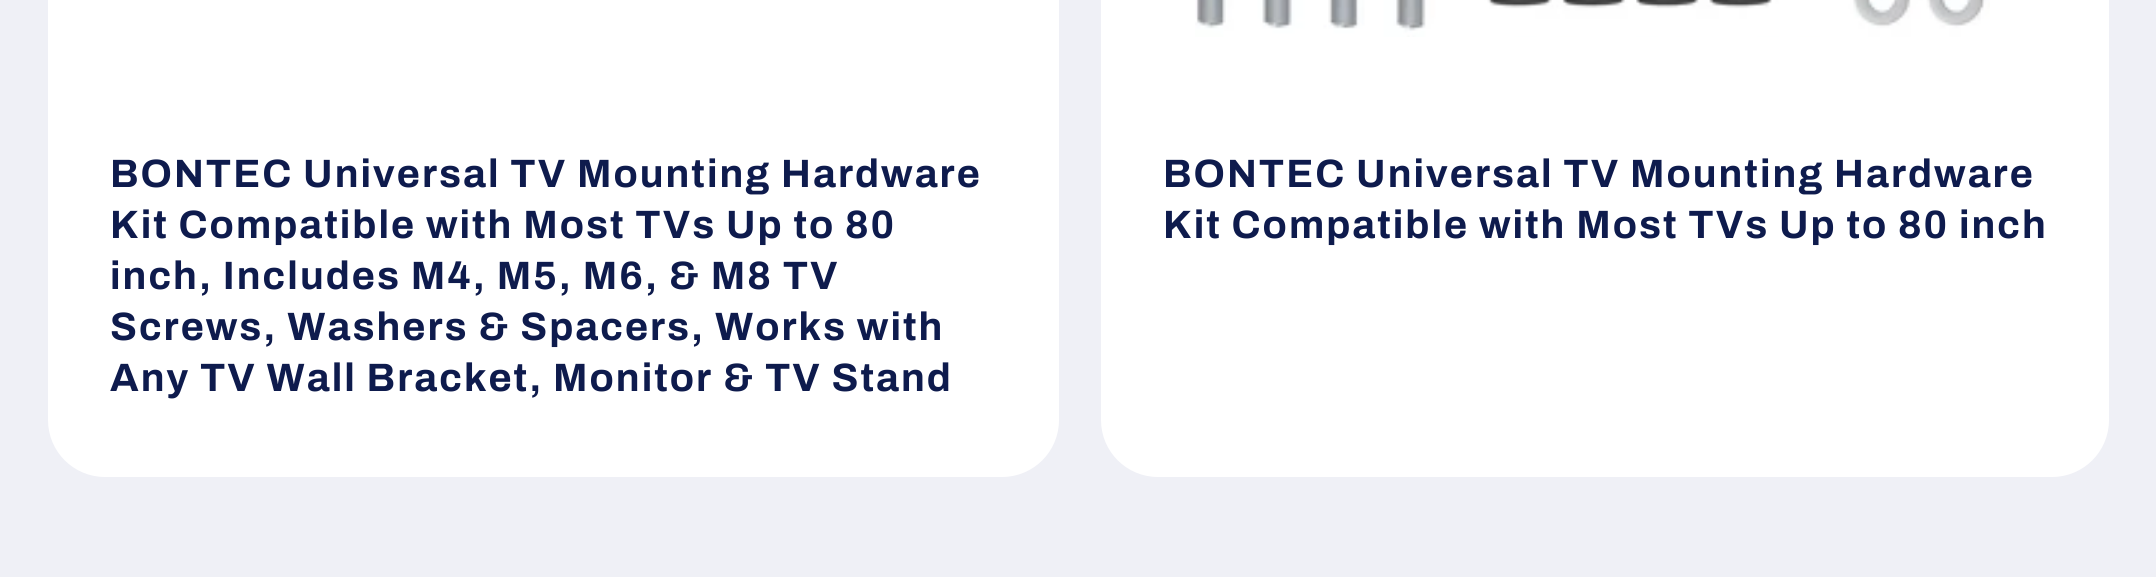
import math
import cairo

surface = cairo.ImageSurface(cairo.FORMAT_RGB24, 2156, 577)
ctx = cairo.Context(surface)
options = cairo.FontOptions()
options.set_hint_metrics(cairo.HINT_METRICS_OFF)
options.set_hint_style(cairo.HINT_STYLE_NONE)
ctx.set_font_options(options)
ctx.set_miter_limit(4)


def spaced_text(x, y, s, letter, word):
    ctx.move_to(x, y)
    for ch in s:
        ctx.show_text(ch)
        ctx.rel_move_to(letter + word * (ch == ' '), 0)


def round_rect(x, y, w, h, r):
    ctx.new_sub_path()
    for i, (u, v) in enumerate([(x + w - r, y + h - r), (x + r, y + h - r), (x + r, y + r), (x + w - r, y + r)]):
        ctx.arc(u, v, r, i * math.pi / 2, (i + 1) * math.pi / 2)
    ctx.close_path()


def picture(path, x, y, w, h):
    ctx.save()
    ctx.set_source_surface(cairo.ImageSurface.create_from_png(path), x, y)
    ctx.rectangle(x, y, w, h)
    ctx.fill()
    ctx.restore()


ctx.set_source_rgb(0.937, 0.941, 0.961)
ctx.paint()
ctx.set_source_rgb(1, 1, 1)
round_rect(48, -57, 1011, 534, 57)
ctx.fill()
ctx.select_font_face("Archivo", cairo.FONT_SLANT_NORMAL, cairo.FONT_WEIGHT_BOLD)
ctx.set_font_size(39.6)
ctx.set_source_rgb(0.055, 0.106, 0.302)
spaced_text(110, 187, "BONTEC Universal TV Mounting Hardware", 2, 0)
spaced_text(110, 238, "Kit Compatible with Most TVs Up to 80", 2, 0)
spaced_text(110, 289, "inch, Includes M4, M5, M6, & M8 TV", 2, 0)
spaced_text(110, 340, "Screws, Washers & Spacers, Works with", 2, 0)
spaced_text(110, 391, "Any TV Wall Bracket, Monitor & TV Stand", 2, 0)
ctx.set_source_rgb(1, 1, 1)
round_rect(1101, -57, 1008, 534, 57)
ctx.fill()
picture("img1.png", 1195, 0, 795, 37)
ctx.set_source_rgb(0.055, 0.106, 0.302)
spaced_text(1163, 187, "BONTEC Universal TV Mounting Hardware", 2, 0)
spaced_text(1163, 238, "Kit Compatible with Most TVs Up to 80 inch", 2, 0)
surface.write_to_png("page.png")
